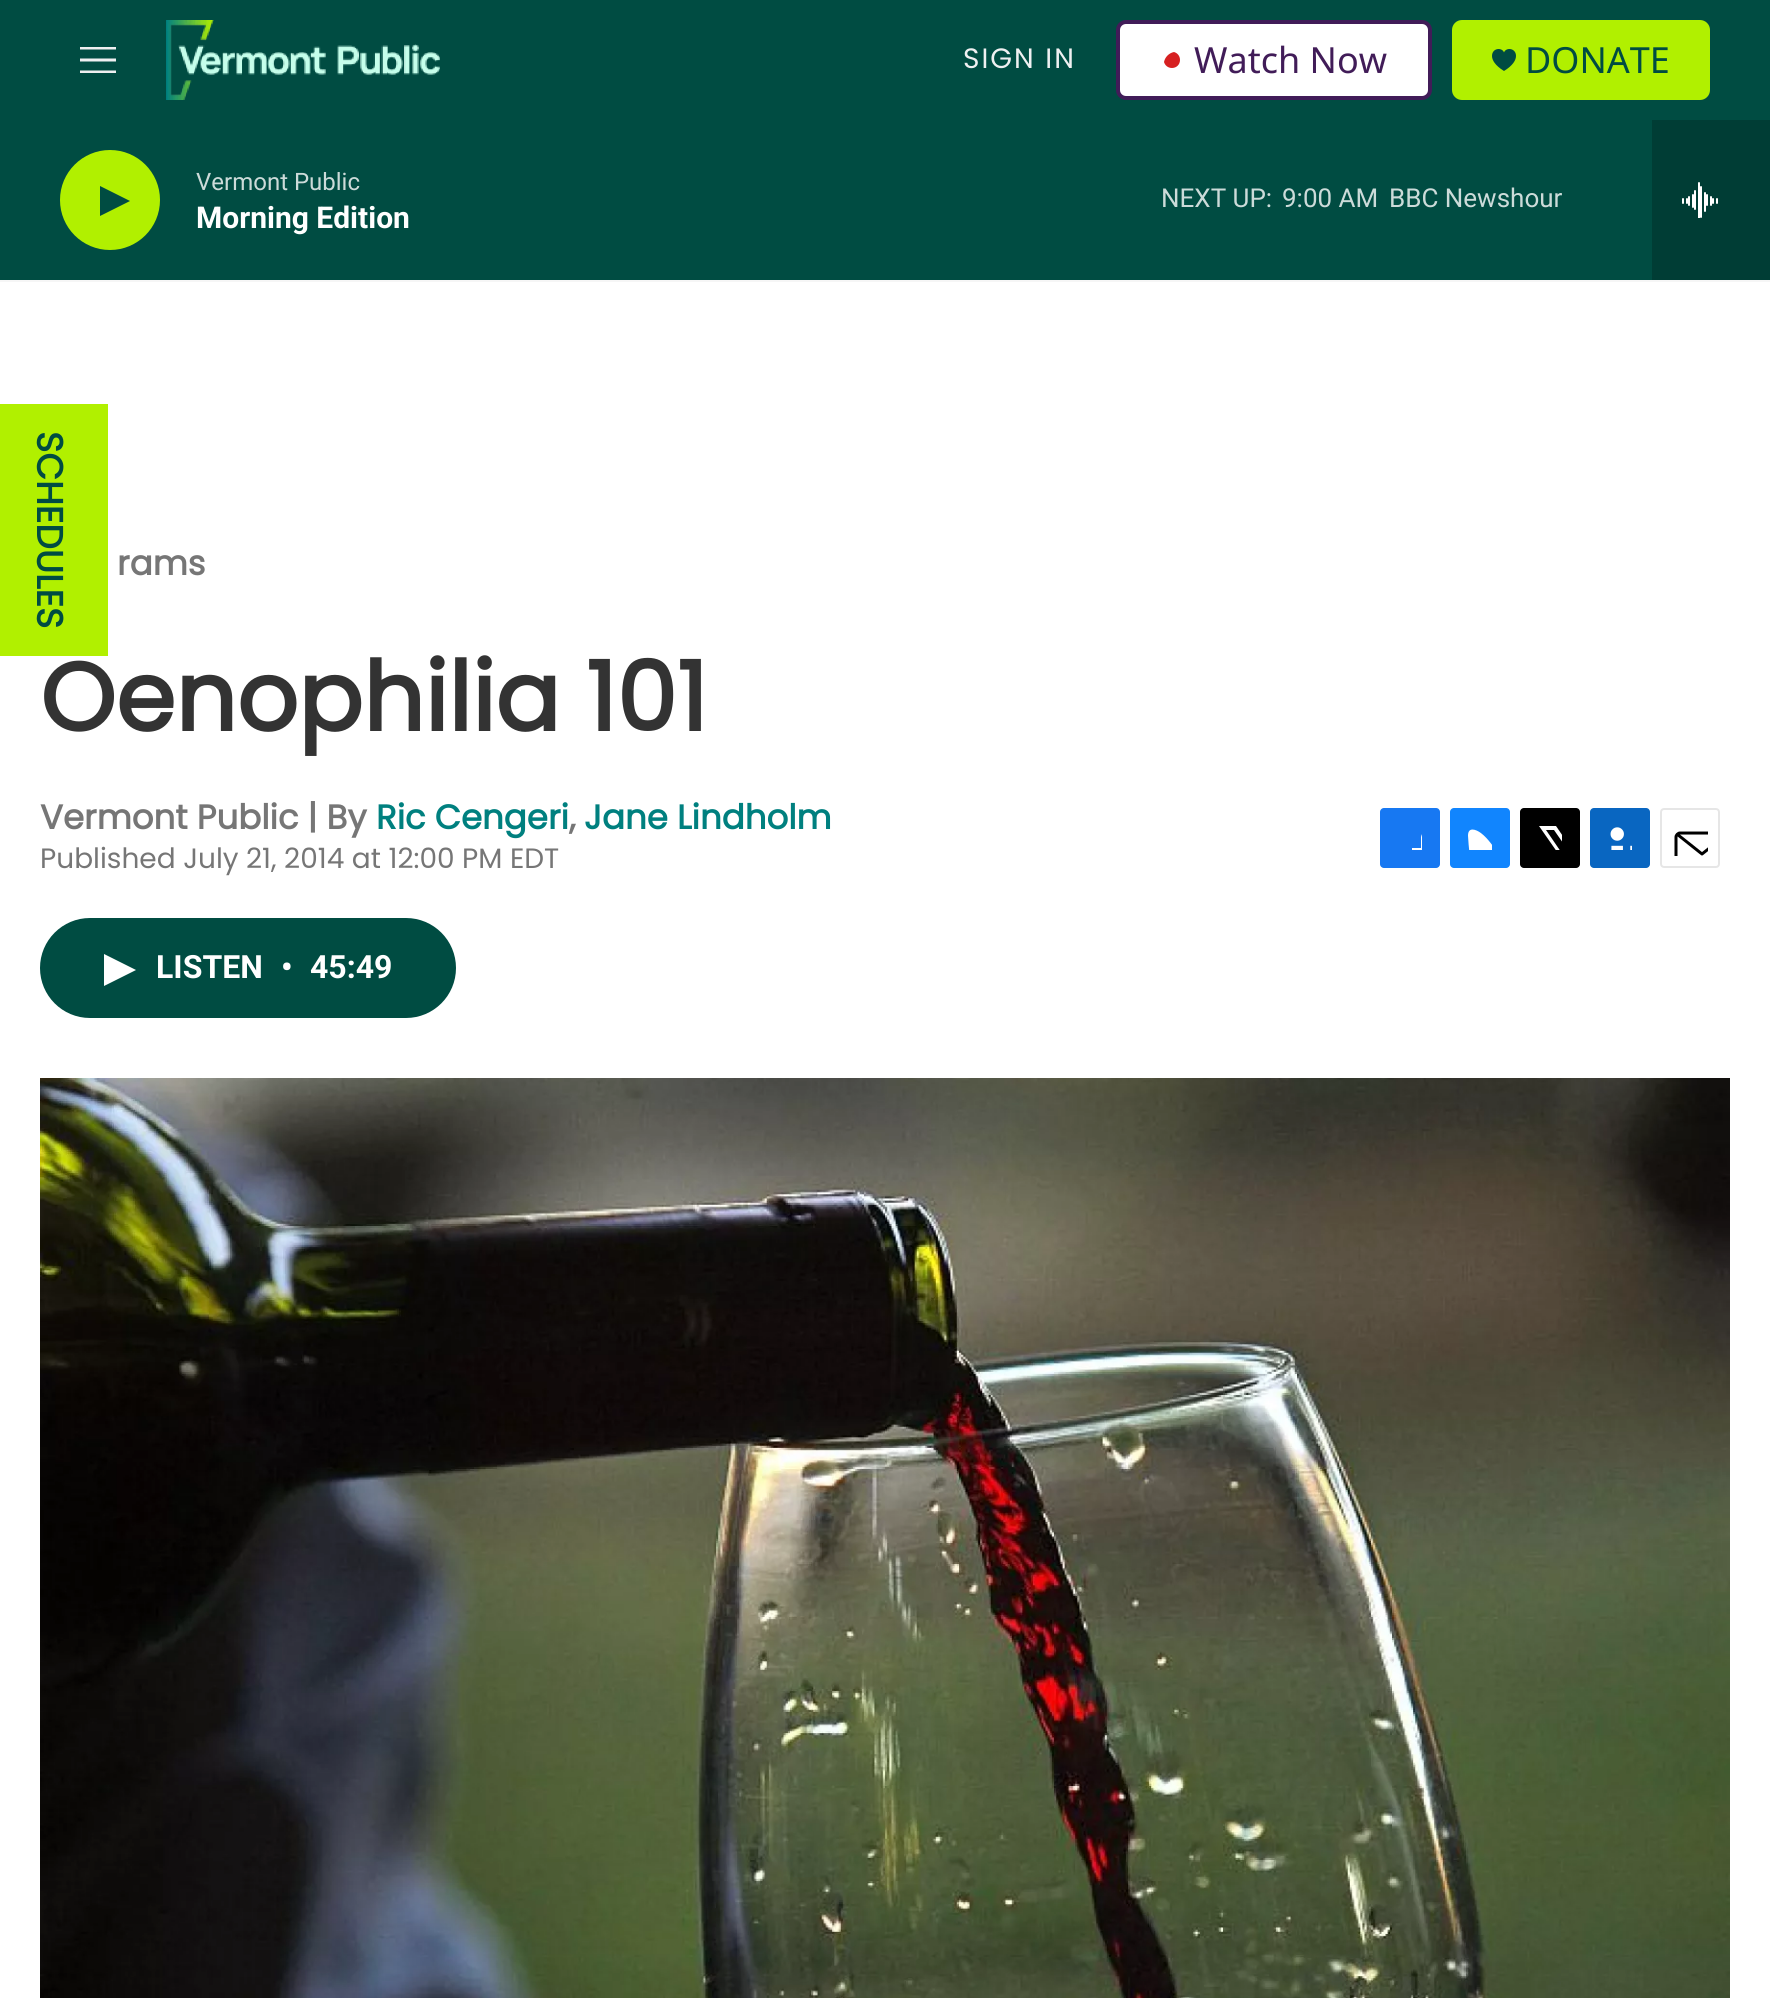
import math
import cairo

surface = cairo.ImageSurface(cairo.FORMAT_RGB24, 1770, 1998)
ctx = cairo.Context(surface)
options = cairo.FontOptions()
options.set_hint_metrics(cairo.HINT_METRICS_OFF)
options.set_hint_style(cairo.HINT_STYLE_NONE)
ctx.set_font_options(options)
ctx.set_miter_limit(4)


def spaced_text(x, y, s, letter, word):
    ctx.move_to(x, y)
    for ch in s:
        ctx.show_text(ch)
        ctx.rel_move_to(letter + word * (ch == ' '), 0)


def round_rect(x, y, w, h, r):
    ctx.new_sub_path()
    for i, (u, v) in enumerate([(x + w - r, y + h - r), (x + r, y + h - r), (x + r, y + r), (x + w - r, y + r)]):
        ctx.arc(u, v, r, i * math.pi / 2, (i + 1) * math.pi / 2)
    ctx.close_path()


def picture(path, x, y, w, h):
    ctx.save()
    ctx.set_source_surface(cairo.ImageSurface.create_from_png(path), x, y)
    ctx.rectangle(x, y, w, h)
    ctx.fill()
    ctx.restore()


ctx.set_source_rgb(1, 1, 1)
ctx.paint()
ctx.set_source_rgb(0, 0.298, 0.259)
ctx.rectangle(0, 0, 1770, 280)
ctx.fill()
ctx.set_source_rgb(0.961, 0.961, 0.961)
ctx.rectangle(0, 280, 1770, 2)
ctx.fill()
ctx.set_source_rgb(0.937, 0.941, 0.945)
ctx.set_fill_rule(cairo.FILL_RULE_EVEN_ODD)
ctx.new_path()
ctx.move_to(80, 61.5)
ctx.line_to(80, 58.5)
ctx.line_to(116, 58.5)
ctx.line_to(116, 61.5)
ctx.close_path()
ctx.move_to(80, 49.5)
ctx.line_to(80, 47)
ctx.line_to(116, 47)
ctx.line_to(116, 49.5)
ctx.close_path()
ctx.move_to(80, 73)
ctx.line_to(80, 70.5)
ctx.line_to(116, 70.5)
ctx.line_to(116, 73)
ctx.close_path()
ctx.fill()
picture("img1.png", 166, 20, 274, 80)
ctx.select_font_face("Poppins")
ctx.set_font_size(28)
spaced_text(963, 68, "SIGN IN", 2, 0)
ctx.set_source_rgb(1, 1, 1)
round_rect(1118, 22, 312, 76, 8)
ctx.fill_preserve()
ctx.set_source_rgb(0.255, 0.11, 0.345)
ctx.set_line_width(4)
ctx.stroke()
ctx.set_source_rgb(0.839, 0.125, 0.129)
ctx.set_fill_rule(cairo.FILL_RULE_WINDING)
ctx.new_path()
ctx.move_to(1174, 52)
ctx.curve_to(1177.5, 53, 1180, 56, 1180, 60)
ctx.curve_to(1180, 64.5, 1176.5, 68, 1172, 68)
ctx.curve_to(1168, 68, 1165, 65.5, 1164, 62)
ctx.curve_to(1165, 57, 1169, 53, 1174, 52)
ctx.close_path()
ctx.fill()
ctx.select_font_face("Noto Sans")
ctx.set_font_size(36)
ctx.set_source_rgb(0.255, 0.11, 0.345)
ctx.move_to(1194, 73)
ctx.show_text("Watch Now")
ctx.set_source_rgb(0.694, 0.941, 0)
round_rect(1452, 20, 258, 80, 10)
ctx.fill()
picture("img2.png", 1492, 49, 24, 22)
ctx.set_source_rgb(0, 0.298, 0.259)
ctx.move_to(1525, 73)
ctx.show_text("DONATE")
ctx.set_source_rgb(0.694, 0.941, 0)
ctx.new_path()
ctx.arc(110, 200, 50, 0, 2 * math.pi)
ctx.fill()
ctx.set_source_rgb(0, 0.298, 0.259)
ctx.new_path()
ctx.move_to(100, 186)
ctx.line_to(130, 201)
ctx.line_to(100, 216)
ctx.close_path()
ctx.fill()
ctx.select_font_face("Roboto")
ctx.set_font_size(24)
ctx.set_source_rgb(0.8, 0.859, 0.851)
ctx.move_to(196, 190)
ctx.show_text("Vermont Public")
ctx.select_font_face("Roboto", cairo.FONT_SLANT_NORMAL, cairo.FONT_WEIGHT_BOLD)
ctx.set_font_size(30)
ctx.set_source_rgb(1, 1, 1)
ctx.move_to(196, 228)
ctx.show_text("Morning Edition")
ctx.select_font_face("Roboto")
ctx.set_font_size(26)
ctx.set_source_rgb(0.8, 0.859, 0.851)
ctx.move_to(1161, 207)
ctx.show_text("NEXT UP:")
ctx.move_to(1282, 207)
ctx.show_text("9:00 AM")
ctx.move_to(1389, 207)
ctx.show_text("BBC Newshour")
ctx.set_source_rgb(0, 0.239, 0.208)
ctx.rectangle(1652, 120, 118, 160)
ctx.fill()
picture("img3.png", 1682, 182, 36, 36)
ctx.set_source_rgb(0.694, 0.941, 0)
ctx.rectangle(0, 404, 108, 252)
ctx.fill()
ctx.select_font_face("Poppins", cairo.FONT_SLANT_NORMAL, cairo.FONT_WEIGHT_BOLD)
ctx.set_font_size(36)
ctx.set_source_rgb(0, 0.298, 0.259)
ctx.save()
ctx.translate(37, 431)
ctx.rotate(90 * math.pi / 180)
ctx.move_to(0, 0)
ctx.show_text("SCHEDULES")
ctx.restore()
ctx.set_font_size(34)
ctx.set_source_rgb(0.463, 0.463, 0.463)
ctx.move_to(117, 575)
ctx.show_text("rams")
ctx.set_font_size(96)
ctx.set_source_rgb(0.2, 0.2, 0.2)
ctx.move_to(40, 731)
ctx.show_text("Oenophilia 101")
ctx.set_font_size(34)
ctx.set_source_rgb(0.463, 0.463, 0.463)
ctx.move_to(40, 829)
ctx.show_text("Vermont Public | By")
ctx.set_source_rgb(0, 0.502, 0.498)
ctx.move_to(376, 829)
ctx.show_text("Ric Cengeri")
ctx.set_source_rgb(0.463, 0.463, 0.463)
ctx.move_to(569, 829)
ctx.show_text(",")
ctx.set_source_rgb(0, 0.502, 0.498)
ctx.move_to(584, 829)
ctx.show_text("Jane Lindholm")
ctx.select_font_face("Poppins")
ctx.set_font_size(28)
ctx.set_source_rgb(0.463, 0.463, 0.463)
ctx.move_to(40, 868)
ctx.show_text("Published July 21, 2014 at 12:00 PM EDT")
ctx.set_source_rgb(0.09, 0.471, 0.949)
round_rect(1380, 808, 60, 60, 4)
ctx.fill()
ctx.save()
ctx.rectangle(1398, 826, 24, 24)
ctx.clip()
ctx.set_source_rgb(1, 1, 1)
ctx.new_path()
ctx.move_to(1431, 868)
ctx.line_to(1421, 868)
ctx.line_to(1421, 858)
ctx.line_to(1412, 858)
ctx.line_to(1412, 848)
ctx.line_to(1421, 848)
ctx.line_to(1421, 837)
ctx.curve_to(1423, 828, 1432, 826, 1440, 827)
ctx.line_to(1440, 836)
ctx.curve_to(1429, 836, 1431, 839, 1431, 848)
ctx.line_to(1440, 848)
ctx.line_to(1440, 853)
ctx.line_to(1439, 858)
ctx.line_to(1431, 858)
ctx.close_path()
ctx.fill()
ctx.restore()
ctx.set_source_rgb(0.067, 0.522, 0.996)
round_rect(1450, 808, 60, 60, 4)
ctx.fill()
picture("img4.png", 1468, 829, 24, 21)
ctx.set_source_rgb(0, 0, 0)
round_rect(1520, 808, 60, 60, 4)
ctx.fill()
ctx.save()
ctx.rectangle(1538, 826, 24, 24)
ctx.clip()
ctx.set_source_rgb(1, 1, 1)
ctx.new_path()
ctx.move_to(1574, 851)
ctx.line_to(1580, 860)
ctx.curve_to(1580, 862, 1581, 865, 1579, 866)
ctx.line_to(1554, 830)
ctx.line_to(1546, 830)
ctx.line_to(1572, 868)
ctx.line_to(1567, 868)
ctx.line_to(1564, 863)
ctx.line_to(1560, 868)
ctx.line_to(1554, 868)
ctx.line_to(1562, 859)
ctx.line_to(1539, 826)
ctx.line_to(1556, 826)
ctx.line_to(1571, 848)
ctx.line_to(1580, 838)
ctx.line_to(1580, 844)
ctx.close_path()
ctx.fill()
ctx.restore()
ctx.set_source_rgb(0.039, 0.4, 0.757)
round_rect(1590, 808, 60, 60, 4)
ctx.fill()
picture("img5.png", 1610, 827, 22, 23)
round_rect(1661, 809, 58, 58, 3)
ctx.set_source_rgb(0.902, 0.902, 0.902)
ctx.set_line_width(2)
ctx.stroke()
ctx.save()
ctx.rectangle(1672, 820, 36, 36)
ctx.clip()
ctx.new_path()
ctx.move_to(1728, 864)
ctx.curve_to(1728, 866, 1726, 867.5, 1724, 867.5)
ctx.line_to(1680, 867.5)
ctx.curve_to(1678, 867.5, 1676, 866, 1676, 864)
ctx.line_to(1676, 837)
ctx.curve_to(1676, 835, 1678, 833, 1680, 833)
ctx.line_to(1724, 833)
ctx.curve_to(1726, 833, 1728, 835, 1728, 837)
ctx.close_path()
ctx.move_to(1726.5, 834.5)
ctx.line_to(1702, 854)
ctx.line_to(1677.5, 834.5)
ctx.set_source_rgb(0, 0, 0)
ctx.set_line_width(3)
ctx.set_line_cap(cairo.LINE_CAP_ROUND)
ctx.set_line_join(cairo.LINE_JOIN_ROUND)
ctx.stroke()
ctx.restore()
ctx.set_source_rgb(0, 0.298, 0.259)
round_rect(40, 918, 416, 100, 50)
ctx.fill()
ctx.set_source_rgb(1, 1, 1)
ctx.new_path()
ctx.move_to(104, 954)
ctx.line_to(136, 970)
ctx.line_to(104, 986)
ctx.close_path()
ctx.fill()
ctx.select_font_face("Roboto", cairo.FONT_SLANT_NORMAL, cairo.FONT_WEIGHT_BOLD)
ctx.set_font_size(32)
ctx.move_to(156, 978)
ctx.show_text("LISTEN")
ctx.move_to(281, 978)
ctx.show_text("•")
ctx.move_to(310, 978)
ctx.show_text("45:49")
picture("img6.png", 40, 1078, 1690, 920)
surface.write_to_png("page.png")
